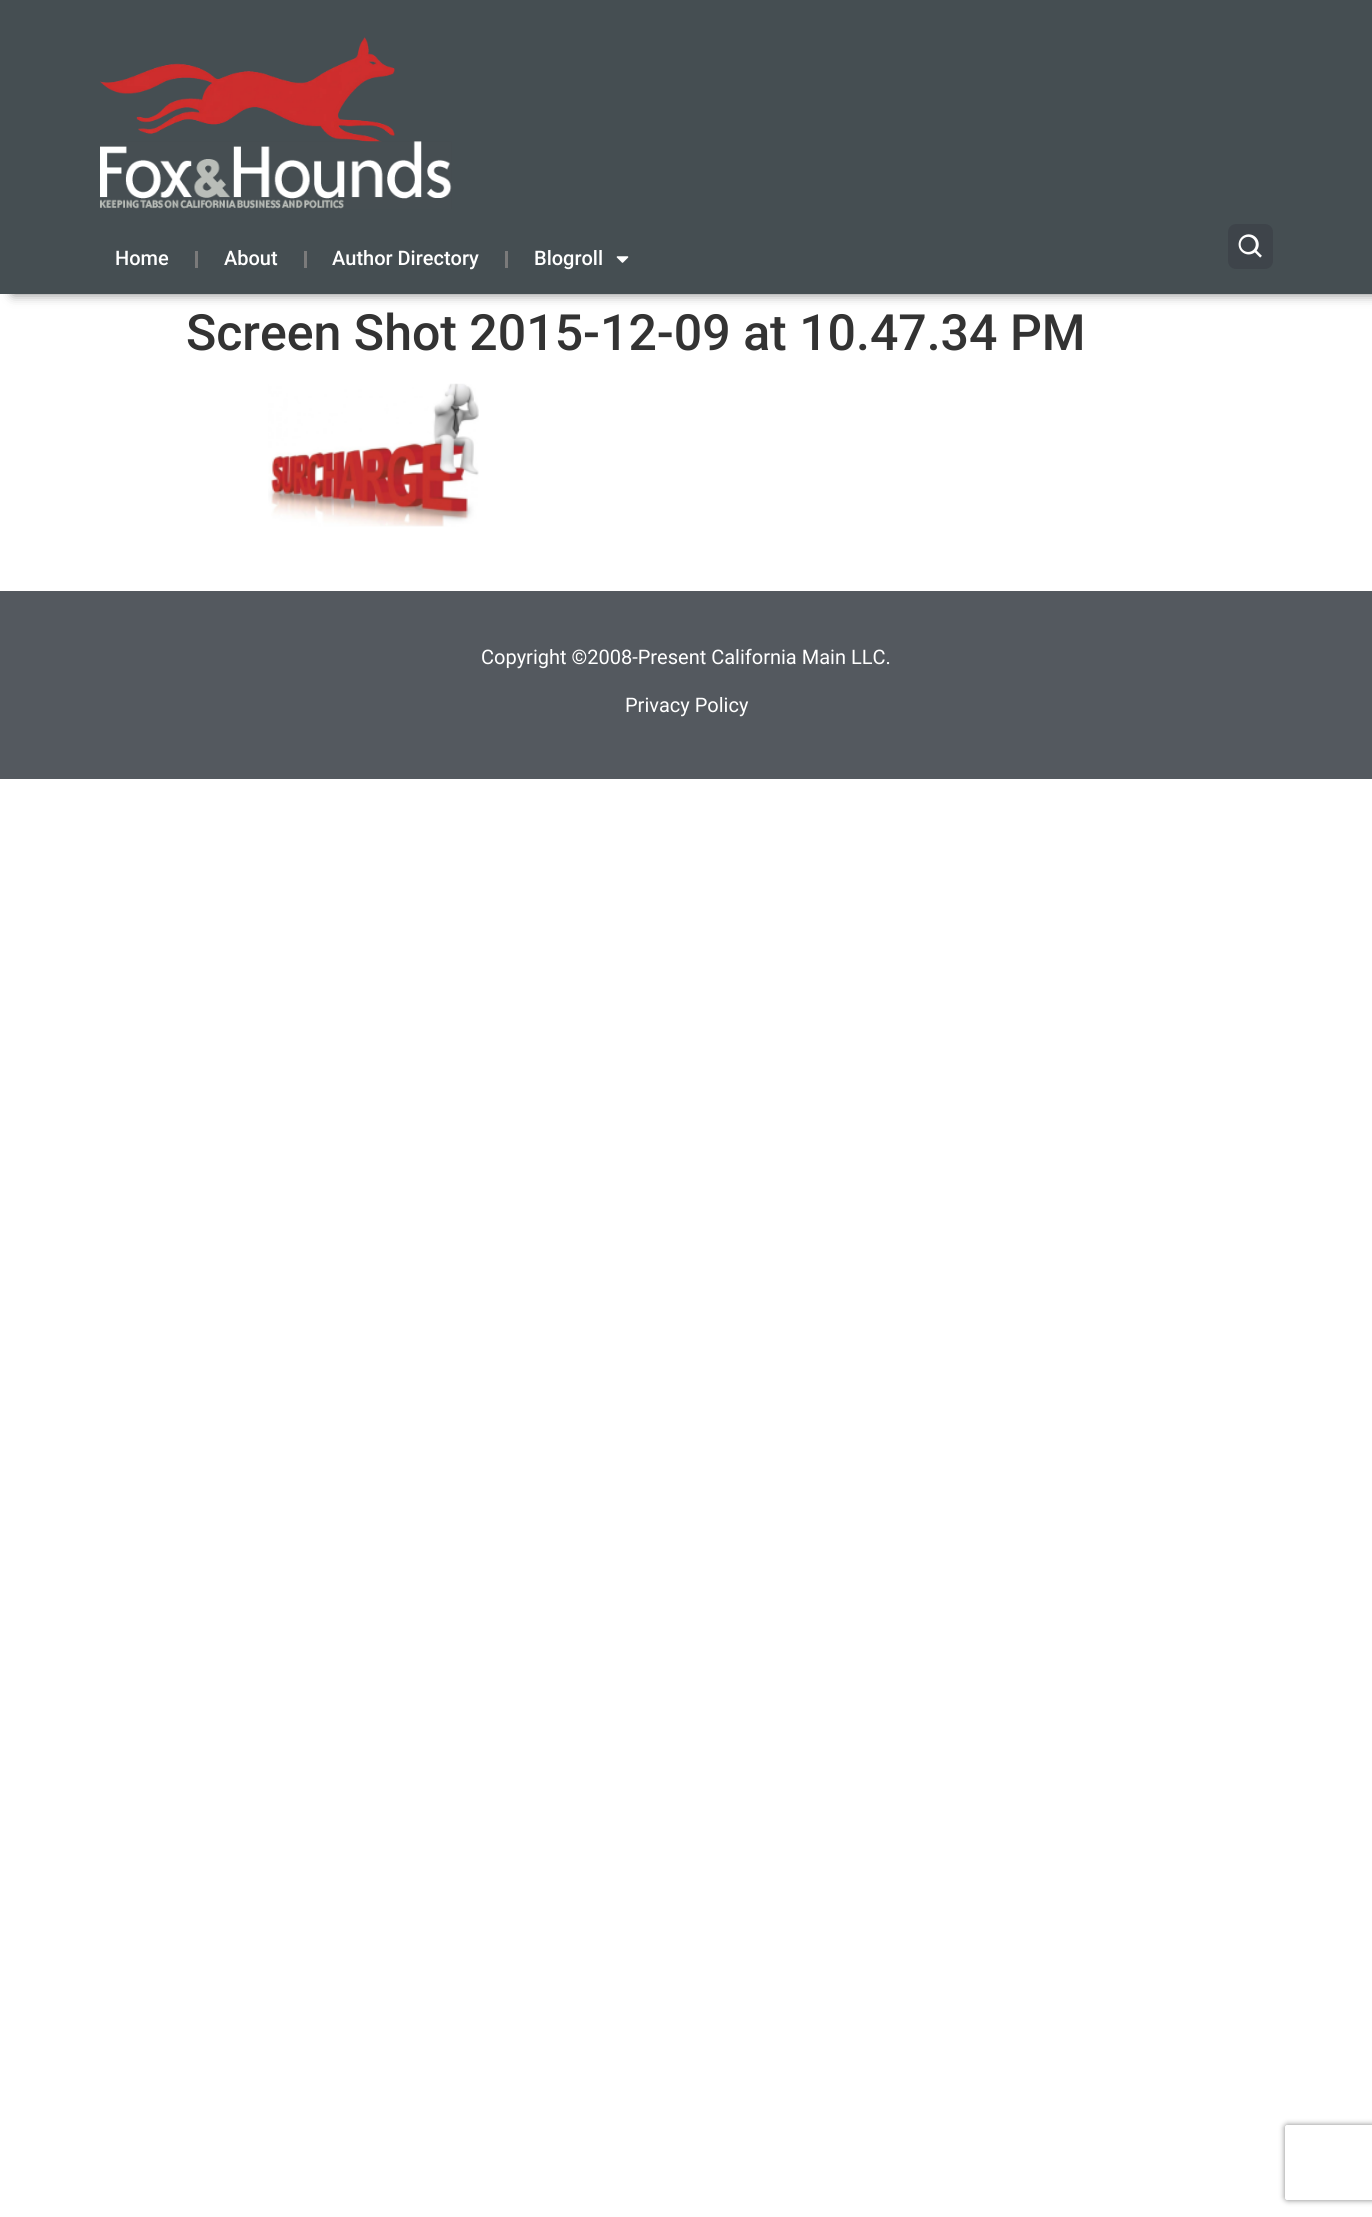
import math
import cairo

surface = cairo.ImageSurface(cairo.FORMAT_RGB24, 1372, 2217)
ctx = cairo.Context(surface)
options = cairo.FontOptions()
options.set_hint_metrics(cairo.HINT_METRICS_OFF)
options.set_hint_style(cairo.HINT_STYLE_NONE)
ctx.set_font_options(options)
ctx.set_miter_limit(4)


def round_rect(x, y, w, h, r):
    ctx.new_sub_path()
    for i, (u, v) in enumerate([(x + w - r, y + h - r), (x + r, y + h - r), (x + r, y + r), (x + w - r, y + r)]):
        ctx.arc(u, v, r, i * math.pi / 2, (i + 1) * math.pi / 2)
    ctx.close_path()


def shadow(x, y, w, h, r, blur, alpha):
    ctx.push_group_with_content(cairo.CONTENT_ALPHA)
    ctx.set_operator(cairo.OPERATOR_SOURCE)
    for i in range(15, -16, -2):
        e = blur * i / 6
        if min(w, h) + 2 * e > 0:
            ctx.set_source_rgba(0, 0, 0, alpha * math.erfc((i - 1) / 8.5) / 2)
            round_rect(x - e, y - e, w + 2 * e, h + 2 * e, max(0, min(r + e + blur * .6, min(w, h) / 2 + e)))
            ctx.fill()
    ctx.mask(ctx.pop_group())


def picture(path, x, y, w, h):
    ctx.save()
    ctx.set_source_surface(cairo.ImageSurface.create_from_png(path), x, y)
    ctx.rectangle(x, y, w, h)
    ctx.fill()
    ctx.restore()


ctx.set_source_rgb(1, 1, 1)
ctx.paint()
ctx.set_source_rgb(0, 0, 0)
shadow(13, 0, 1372, 294, 0, 6, 0.5)
ctx.set_source_rgb(0.271, 0.306, 0.322)
ctx.rectangle(0, 0, 1372, 294)
ctx.fill()
picture("img1.png", 100, 37, 295, 105)
picture("img2.png", 100, 141, 352, 68)
ctx.select_font_face("Roboto Medium")
ctx.set_font_size(20)
ctx.set_source_rgb(1, 1, 1)
ctx.move_to(115, 265)
ctx.show_text("Home")
ctx.set_source_rgb(0.478, 0.478, 0.478)
ctx.rectangle(195, 251, 3, 17)
ctx.fill()
ctx.set_source_rgb(1, 1, 1)
ctx.move_to(224, 265)
ctx.show_text("About")
ctx.set_source_rgb(0.478, 0.478, 0.478)
ctx.rectangle(304, 251, 3, 17)
ctx.fill()
ctx.set_source_rgb(1, 1, 1)
ctx.move_to(332, 265)
ctx.show_text("Author Directory")
ctx.set_source_rgb(0.478, 0.478, 0.478)
ctx.rectangle(505, 251, 3, 17)
ctx.fill()
ctx.set_source_rgb(1, 1, 1)
ctx.move_to(534, 265)
ctx.show_text("Blogroll")
picture("img3.png", 616, 256, 13, 7)
ctx.set_source_rgb(0.243, 0.267, 0.29)
round_rect(1228, 224, 45, 45, 8)
ctx.fill()
picture("img4.png", 1238, 234, 24, 24)
ctx.set_font_size(50)
ctx.set_source_rgb(0.2, 0.2, 0.2)
ctx.move_to(186, 350)
ctx.show_text("Screen Shot 2015-12-09 at 10.47.34 PM")
picture("img5.png", 268, 383, 211, 144)
ctx.set_source_rgb(0.329, 0.349, 0.373)
ctx.rectangle(0, 591, 1372, 188)
ctx.fill()
ctx.select_font_face("Roboto")
ctx.set_font_size(20)
ctx.set_source_rgb(1, 1, 1)
ctx.move_to(481, 664)
ctx.show_text("Copyright ©2008-Present California Main LLC.")
ctx.move_to(625, 712)
ctx.show_text("Privacy Policy")
ctx.save()
ctx.set_fill_rule(cairo.FILL_RULE_EVEN_ODD)
ctx.new_path()
ctx.move_to(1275, 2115)
ctx.line_to(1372, 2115)
ctx.line_to(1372, 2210)
ctx.line_to(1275, 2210)
ctx.close_path()
ctx.move_to(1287.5, 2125)
ctx.line_to(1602.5, 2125)
ctx.curve_to(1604, 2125, 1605, 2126, 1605, 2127.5)
ctx.line_to(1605, 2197.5)
ctx.curve_to(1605, 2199, 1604, 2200, 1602.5, 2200)
ctx.line_to(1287.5, 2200)
ctx.curve_to(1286, 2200, 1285, 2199, 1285, 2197.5)
ctx.line_to(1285, 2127.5)
ctx.curve_to(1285, 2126, 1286, 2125, 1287.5, 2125)
ctx.close_path()
ctx.clip()
ctx.set_source_rgb(0.502, 0.502, 0.502)
shadow(1285, 2125, 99, 75, 2.5, 3, 1)
ctx.restore()
surface.write_to_png("page.png")
